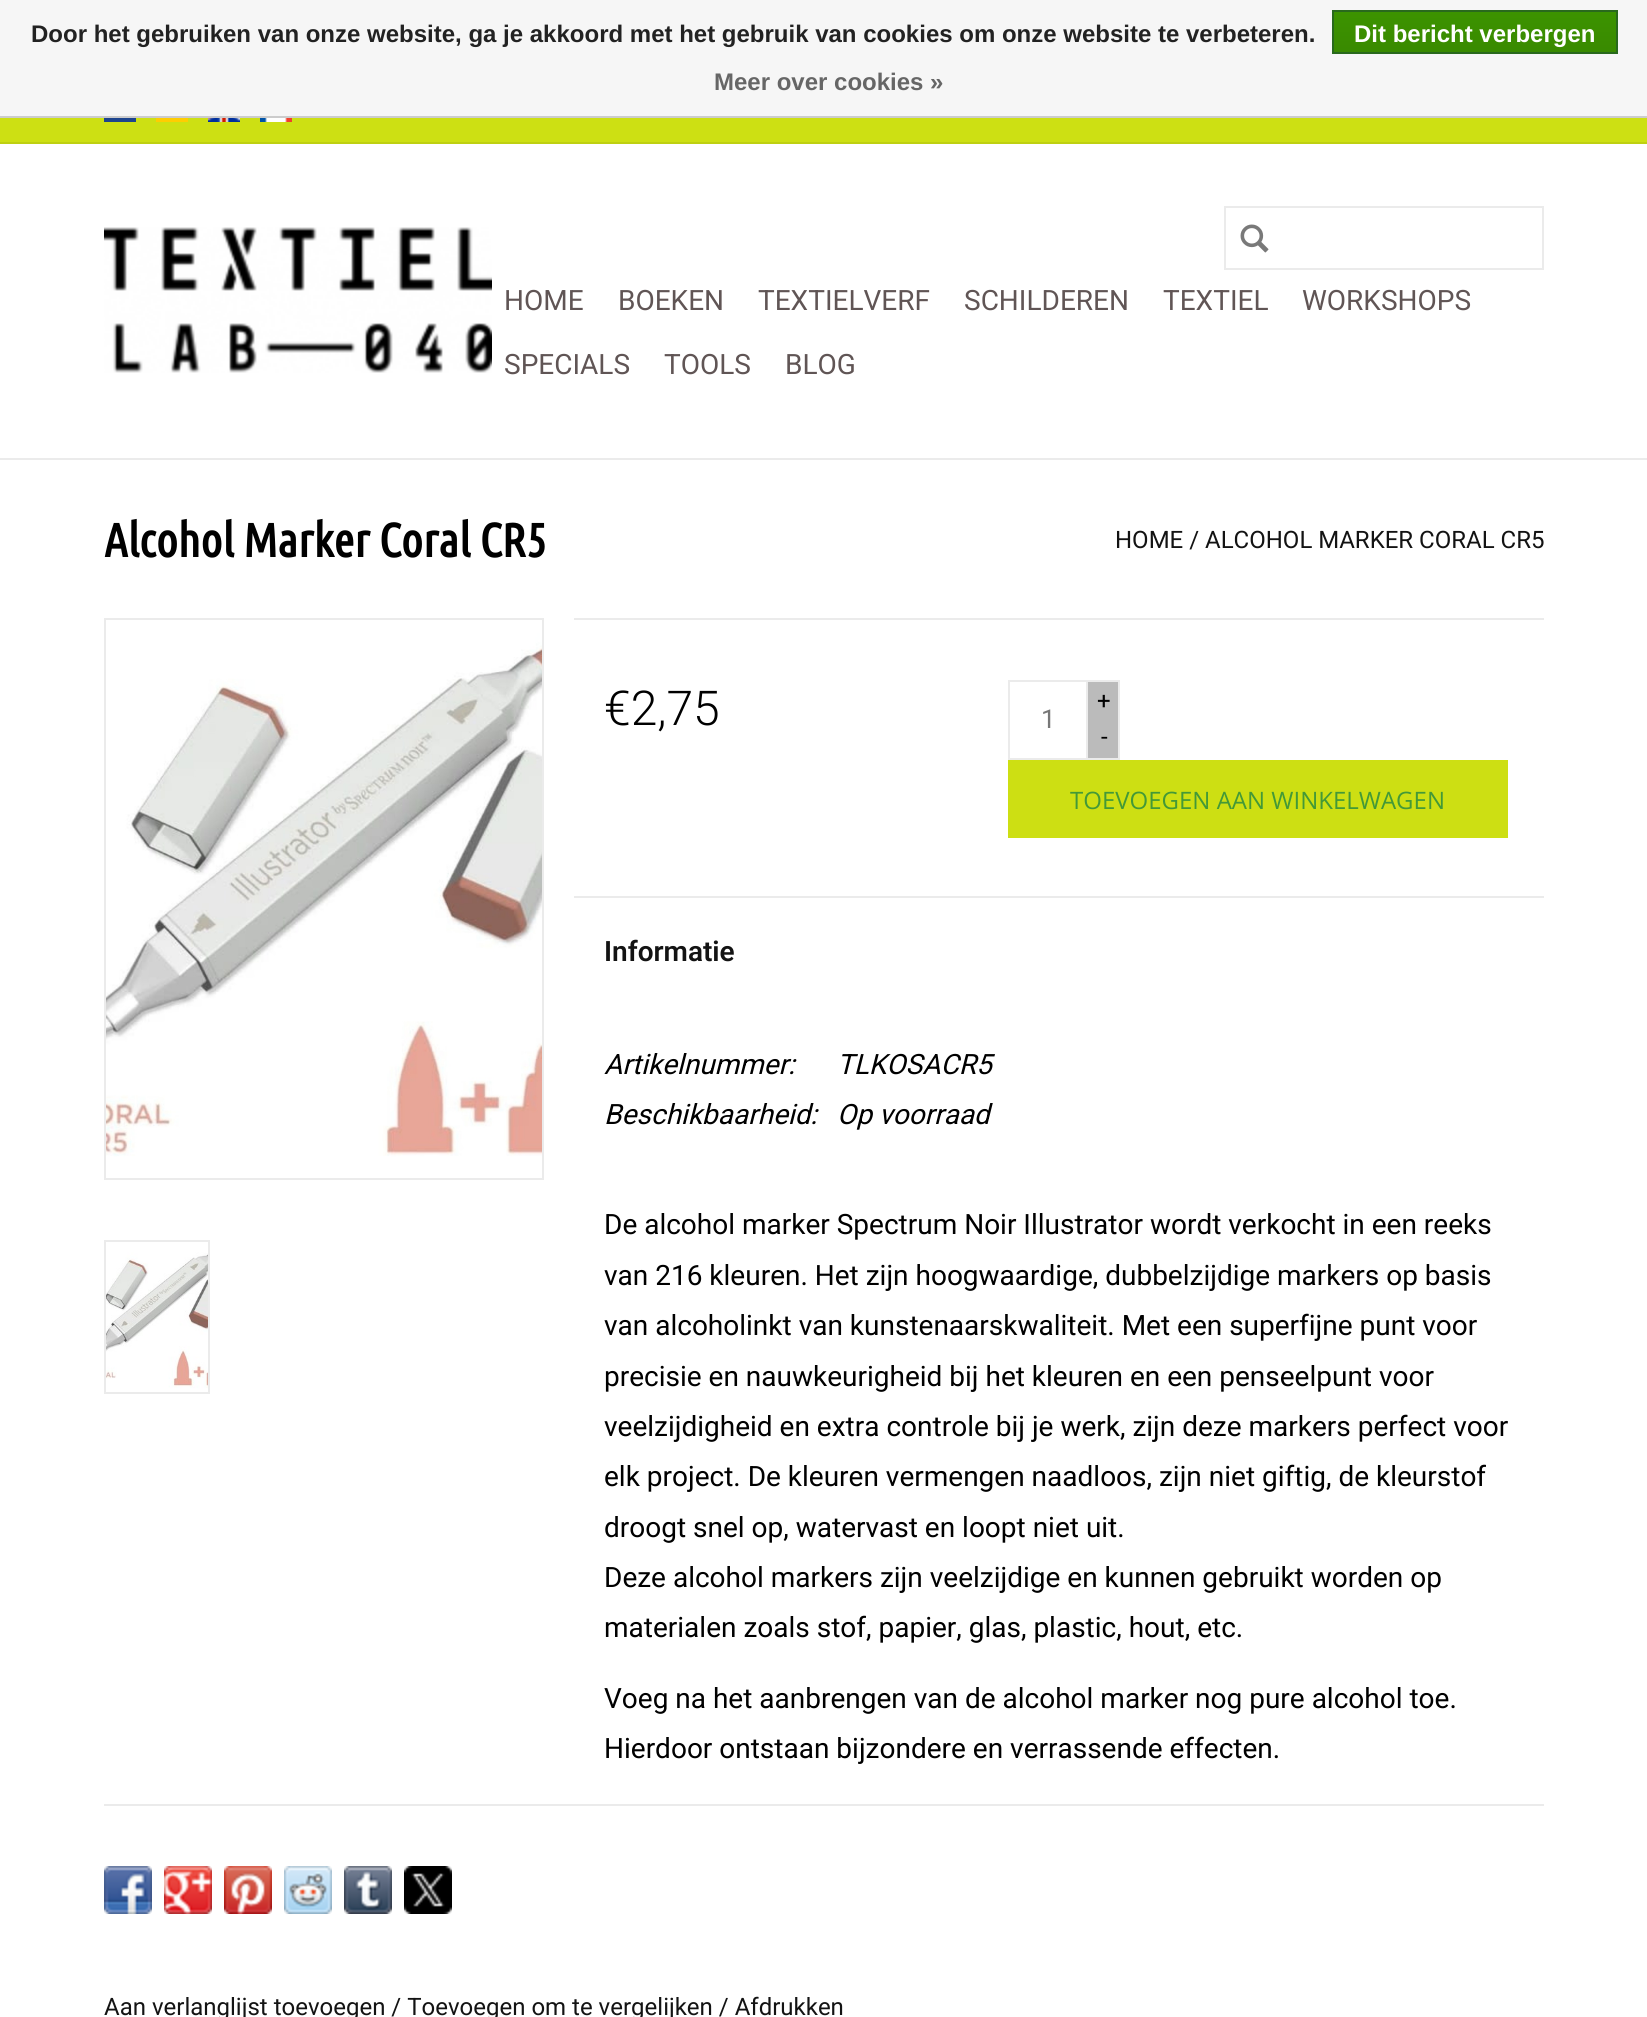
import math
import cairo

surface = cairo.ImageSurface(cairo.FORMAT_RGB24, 1647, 2017)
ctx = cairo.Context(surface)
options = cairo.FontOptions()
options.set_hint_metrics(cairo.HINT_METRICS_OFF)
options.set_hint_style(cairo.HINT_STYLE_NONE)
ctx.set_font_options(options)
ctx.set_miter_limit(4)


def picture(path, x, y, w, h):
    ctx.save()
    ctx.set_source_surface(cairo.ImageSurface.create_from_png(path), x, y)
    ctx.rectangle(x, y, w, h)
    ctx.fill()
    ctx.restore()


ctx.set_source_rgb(1, 1, 1)
ctx.paint()
ctx.set_source_rgb(0.961, 0.961, 0.961)
ctx.rectangle(0, 0, 1647, 116)
ctx.fill()
ctx.set_source_rgb(0.8, 0.8, 0.8)
ctx.rectangle(0, 116, 1647, 2)
ctx.fill()
ctx.select_font_face("Liberation Sans", cairo.FONT_SLANT_NORMAL, cairo.FONT_WEIGHT_BOLD)
ctx.set_font_size(24)
ctx.set_source_rgb(0.133, 0.133, 0.133)
ctx.move_to(31, 42)
ctx.show_text("Door het gebruiken van onze website, ga je akkoord met het gebruik van cookies om onze website te verbeteren.")
gradient = cairo.LinearGradient(1475, 12, 1475, 52)
gradient.add_color_stop_rgba(0, 0.235, 0.576, 0, 1)
gradient.add_color_stop_rgba(1, 0.224, 0.541, 0, 1)
ctx.set_source(gradient)
ctx.rectangle(1334, 12, 282, 40)
ctx.fill()
ctx.rectangle(1333, 11, 284, 42)
ctx.set_source_rgb(0.161, 0.412, 0.114)
ctx.stroke()
ctx.set_source_rgb(1, 1, 1)
ctx.move_to(1354, 42)
ctx.show_text("Dit bericht verbergen")
ctx.set_source_rgb(0.4, 0.4, 0.4)
ctx.move_to(714, 90)
ctx.show_text("Meer over cookies »")
ctx.set_source_rgb(0.918, 0.918, 0.918)
ctx.rectangle(0, 458, 1647, 2)
ctx.fill()
ctx.set_source_rgb(0.804, 0.878, 0.078)
ctx.rectangle(0, 118, 1647, 24)
ctx.fill()
ctx.set_source_rgb(0.745, 0.816, 0.071)
ctx.rectangle(0, 142, 1647, 2)
ctx.fill()
picture("img1.png", 104, 118, 32, 4)
picture("img2.png", 156, 118, 32, 4)
picture("img3.png", 208, 118, 32, 4)
picture("img4.png", 260, 118, 32, 4)
picture("img5.png", 104, 227, 388, 146)
ctx.rectangle(1225, 207, 318, 62)
ctx.set_source_rgb(0.918, 0.918, 0.918)
ctx.stroke()
picture("img6.png", 1240, 224, 29, 29)
ctx.select_font_face("Roboto")
ctx.set_font_size(28)
ctx.set_source_rgb(0.376, 0.333, 0.333)
ctx.move_to(504, 310)
ctx.show_text("HOME")
ctx.move_to(618, 310)
ctx.show_text("BOEKEN")
ctx.move_to(758, 310)
ctx.show_text("TEXTIELVERF")
ctx.move_to(964, 310)
ctx.show_text("SCHILDEREN")
ctx.move_to(1163, 310)
ctx.show_text("TEXTIEL")
ctx.move_to(1302, 310)
ctx.show_text("WORKSHOPS")
ctx.move_to(504, 374)
ctx.show_text("SPECIALS")
ctx.move_to(664, 374)
ctx.show_text("TOOLS")
ctx.move_to(785, 374)
ctx.show_text("BLOG")
ctx.select_font_face("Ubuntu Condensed", cairo.FONT_SLANT_NORMAL, cairo.FONT_WEIGHT_BOLD)
ctx.set_font_size(47.25)
ctx.set_source_rgb(0, 0, 0)
ctx.move_to(104, 557)
ctx.show_text("Alcohol Marker Coral CR5")
ctx.select_font_face("Roboto")
ctx.set_font_size(24)
ctx.set_source_rgb(0.078, 0.078, 0.078)
ctx.move_to(1115, 548)
ctx.show_text("HOME / ALCOHOL MARKER CORAL CR5")
ctx.rectangle(105, 619, 438, 560)
ctx.set_source_rgb(0.918, 0.918, 0.918)
ctx.stroke()
picture("img7.png", 106, 620, 436, 558)
ctx.rectangle(105, 1241, 104, 152)
ctx.stroke()
picture("img8.png", 106, 1242, 102, 150)
ctx.rectangle(574, 618, 970, 2)
ctx.fill()
ctx.select_font_face("Roboto Light")
ctx.set_font_size(48)
ctx.set_source_rgb(0, 0, 0)
ctx.move_to(604, 725)
ctx.show_text("€2,75")
ctx.rectangle(1009, 681, 78, 78)
ctx.set_source_rgb(0.918, 0.918, 0.918)
ctx.stroke()
ctx.select_font_face("Roboto")
ctx.set_font_size(26)
ctx.set_source_rgb(0.467, 0.467, 0.467)
ctx.move_to(1041, 728)
ctx.show_text("1")
ctx.set_source_rgb(0.733, 0.733, 0.733)
ctx.rectangle(1088, 682, 30, 76)
ctx.fill()
ctx.set_source_rgb(0.918, 0.918, 0.918)
ctx.rectangle(1088, 680, 32, 2)
ctx.fill()
ctx.rectangle(1118, 680, 2, 80)
ctx.fill()
ctx.rectangle(1088, 758, 32, 2)
ctx.fill()
ctx.set_font_size(24)
ctx.set_source_rgb(0, 0, 0)
ctx.move_to(1097, 709)
ctx.show_text("+")
ctx.move_to(1101, 745)
ctx.show_text("-")
ctx.set_source_rgb(0.804, 0.875, 0.075)
ctx.rectangle(1008, 760, 500, 78)
ctx.fill()
ctx.select_font_face("Open Sans")
ctx.set_source_rgb(0.263, 0.6, 0.216)
ctx.move_to(1070, 809)
ctx.show_text("TOEVOEGEN AAN WINKELWAGEN")
ctx.set_source_rgb(0.918, 0.918, 0.918)
ctx.rectangle(574, 896, 970, 2)
ctx.fill()
ctx.select_font_face("Roboto SemiBold")
ctx.set_font_size(28)
ctx.set_source_rgb(0.078, 0.078, 0.078)
ctx.move_to(604, 961)
ctx.show_text("Informatie")
ctx.select_font_face("Roboto", cairo.FONT_SLANT_ITALIC)
ctx.set_source_rgb(0, 0, 0)
ctx.move_to(604, 1074)
ctx.show_text("Artikelnummer:")
ctx.move_to(837, 1074)
ctx.show_text("TLKOSACR5")
ctx.move_to(604, 1124)
ctx.show_text("Beschikbaarheid:")
ctx.move_to(837, 1124)
ctx.show_text("Op voorraad")
ctx.select_font_face("Roboto")
ctx.move_to(604, 1234)
ctx.show_text("De alcohol marker Spectrum Noir Illustrator wordt verkocht in een reeks")
ctx.move_to(604, 1285)
ctx.show_text("van 216 kleuren. Het zijn hoogwaardige, dubbelzijdige markers op basis")
ctx.move_to(604, 1335)
ctx.show_text("van alcoholinkt van kunstenaarskwaliteit. Met een superfijne punt voor")
ctx.move_to(604, 1386)
ctx.show_text("precisie en nauwkeurigheid bij het kleuren en een penseelpunt voor")
ctx.move_to(604, 1436)
ctx.show_text("veelzijdigheid en extra controle bij je werk, zijn deze markers perfect voor")
ctx.move_to(604, 1486)
ctx.show_text("elk project. De kleuren vermengen naadloos, zijn niet giftig, de kleurstof")
ctx.move_to(604, 1537)
ctx.show_text("droogt snel op, watervast en loopt niet uit.")
ctx.move_to(604, 1587)
ctx.show_text("Deze alcohol markers zijn veelzijdige en kunnen gebruikt worden op")
ctx.move_to(604, 1637)
ctx.show_text("materialen zoals stof, papier, glas, plastic, hout, etc.")
ctx.move_to(604, 1708)
ctx.show_text("Voeg na het aanbrengen van de alcohol marker nog pure alcohol toe.")
ctx.move_to(604, 1758)
ctx.show_text("Hierdoor ontstaan bijzondere en verrassende effecten.")
ctx.set_source_rgb(0.918, 0.918, 0.918)
ctx.rectangle(104, 1804, 1440, 2)
ctx.fill()
picture("img9.png", 104, 1866, 48, 48)
picture("img10.png", 164, 1866, 48, 48)
picture("img11.png", 224, 1866, 48, 48)
picture("img12.png", 284, 1866, 48, 48)
picture("img13.png", 344, 1866, 48, 48)
picture("img14.png", 404, 1866, 48, 48)
ctx.set_font_size(24)
ctx.set_source_rgb(0.078, 0.078, 0.078)
ctx.move_to(104, 2015)
ctx.show_text("Aan verlanglijst toevoegen / Toevoegen om te vergelijken / Afdrukken")
surface.write_to_png("page.png")
